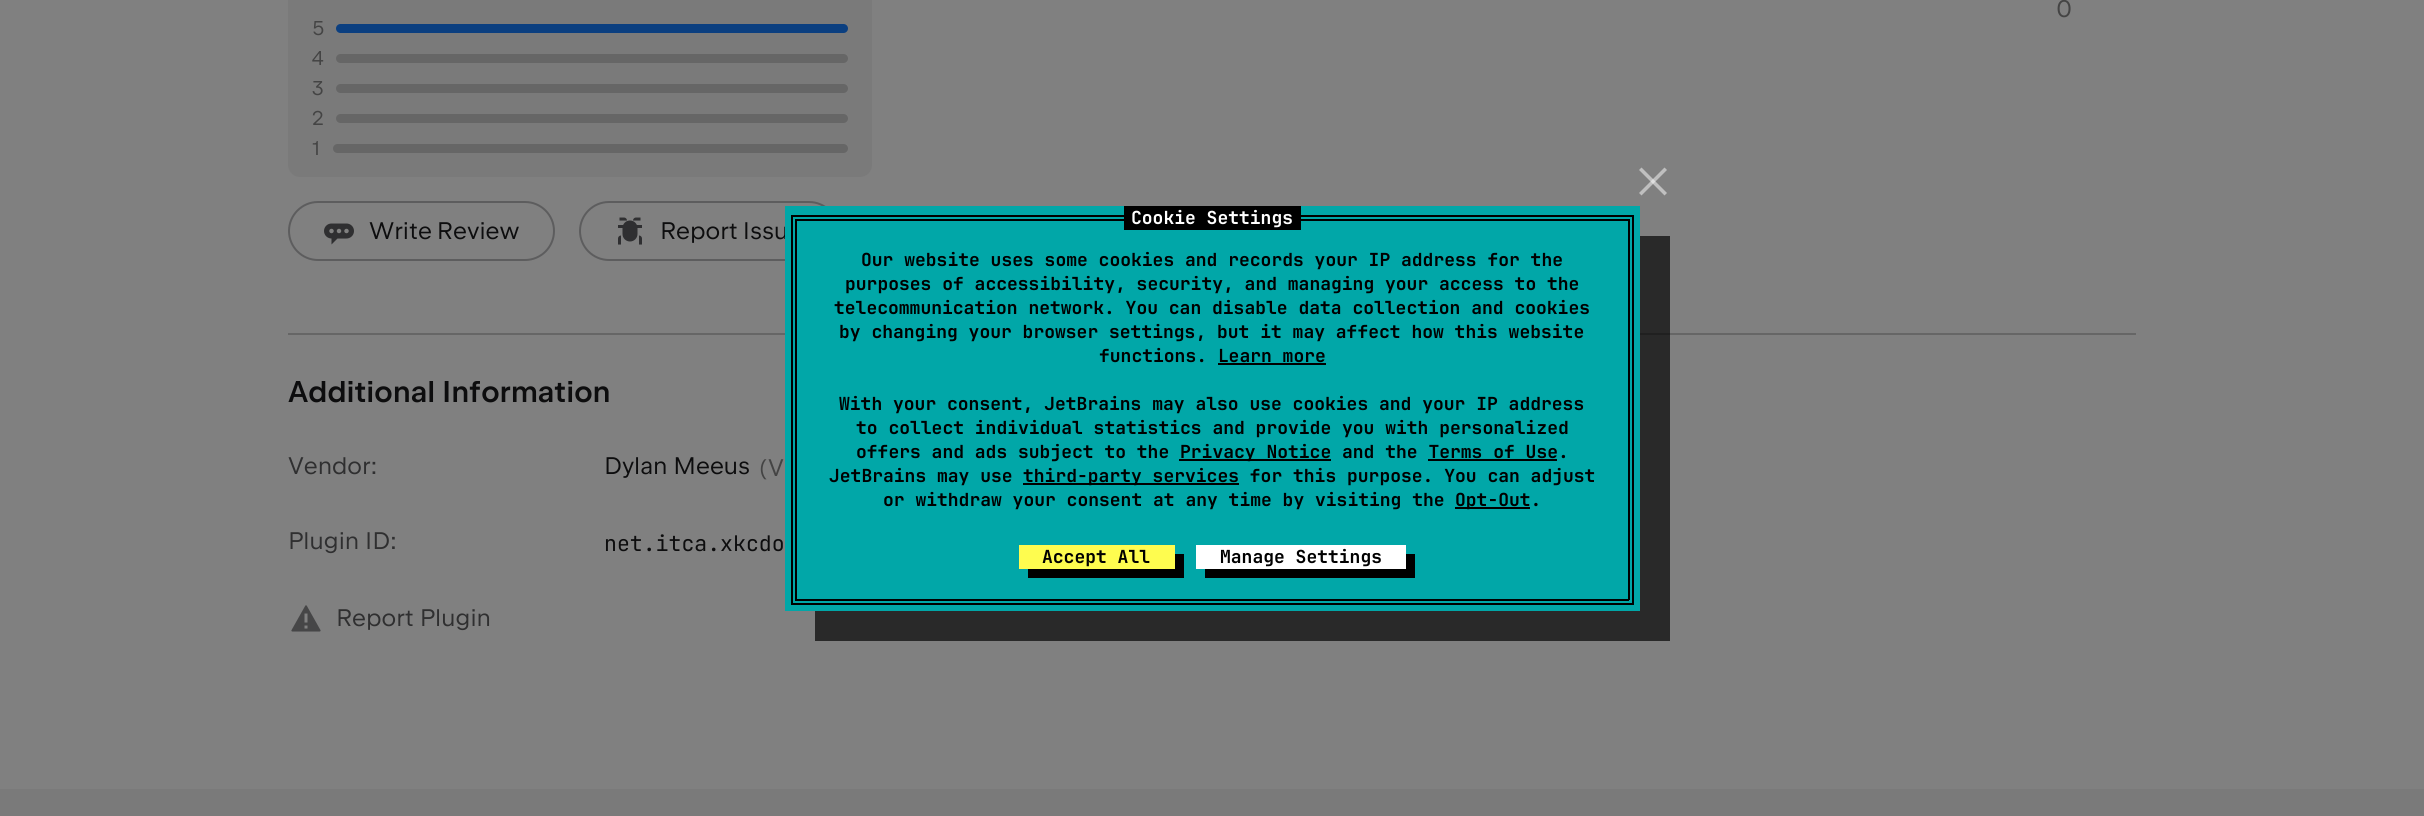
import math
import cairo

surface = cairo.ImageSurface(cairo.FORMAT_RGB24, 2424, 816)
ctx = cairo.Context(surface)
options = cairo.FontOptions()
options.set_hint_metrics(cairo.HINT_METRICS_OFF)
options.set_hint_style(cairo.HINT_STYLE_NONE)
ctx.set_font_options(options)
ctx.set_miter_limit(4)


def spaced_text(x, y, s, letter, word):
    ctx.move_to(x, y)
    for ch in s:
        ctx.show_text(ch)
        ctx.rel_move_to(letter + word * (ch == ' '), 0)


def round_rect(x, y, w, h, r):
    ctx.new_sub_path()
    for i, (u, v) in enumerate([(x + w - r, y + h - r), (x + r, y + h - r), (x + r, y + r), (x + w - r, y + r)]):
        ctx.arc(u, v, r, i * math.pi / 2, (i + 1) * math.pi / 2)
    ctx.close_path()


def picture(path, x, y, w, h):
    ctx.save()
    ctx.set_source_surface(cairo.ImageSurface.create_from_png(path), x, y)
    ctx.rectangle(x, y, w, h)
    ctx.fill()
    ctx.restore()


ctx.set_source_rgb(0.502, 0.502, 0.502)
ctx.paint()
ctx.select_font_face("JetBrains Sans")
ctx.set_font_size(24)
ctx.set_source_rgb(0.267, 0.267, 0.267)
ctx.move_to(2056, 17)
ctx.show_text("0")
ctx.set_source_rgb(0.478, 0.478, 0.478)
round_rect(288, -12, 584, 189, 12)
ctx.fill()
ctx.set_font_size(20)
ctx.set_source_rgb(0.267, 0.267, 0.267)
ctx.move_to(312, 35)
ctx.show_text("5")
ctx.set_source_rgb(0.043, 0.247, 0.502)
round_rect(336, 24, 512, 9, 4.5)
ctx.fill()
ctx.set_source_rgb(0.267, 0.267, 0.267)
ctx.move_to(312, 65)
ctx.show_text("4")
ctx.set_source_rgb(0.4, 0.4, 0.4)
round_rect(336, 54, 512, 9, 4.5)
ctx.fill()
ctx.set_source_rgb(0.267, 0.267, 0.267)
ctx.move_to(312, 95)
ctx.show_text("3")
ctx.set_source_rgb(0.4, 0.4, 0.4)
round_rect(336, 84, 512, 9, 4.5)
ctx.fill()
ctx.set_source_rgb(0.267, 0.267, 0.267)
ctx.move_to(312, 125)
ctx.show_text("2")
ctx.set_source_rgb(0.4, 0.4, 0.4)
round_rect(336, 114, 512, 9, 4.5)
ctx.fill()
ctx.set_source_rgb(0.267, 0.267, 0.267)
ctx.move_to(312, 155)
ctx.show_text("1")
ctx.set_source_rgb(0.4, 0.4, 0.4)
round_rect(333, 144, 515, 9, 4.5)
ctx.fill()
picture("img1.png", 324, 223, 30, 22)
round_rect(289, 202, 265, 58, 29)
ctx.set_source_rgb(0.365, 0.365, 0.369)
ctx.stroke()
ctx.set_font_size(24)
ctx.set_source_rgb(0.051, 0.051, 0.055)
spaced_text(369, 239, "Write Review", 0, -1)
picture("img2.png", 618, 217, 24, 28)
round_rect(580, 202, 258, 58, 29)
ctx.set_source_rgb(0.365, 0.365, 0.369)
ctx.stroke()
ctx.set_source_rgb(0.051, 0.051, 0.055)
spaced_text(660, 239, "Report Issu", 0, -1)
ctx.set_source_rgb(0.4, 0.4, 0.4)
ctx.rectangle(288, 333, 1848, 2)
ctx.fill()
ctx.select_font_face("JetBrains Sans Medium")
ctx.set_font_size(30)
ctx.set_source_rgb(0.051, 0.051, 0.055)
ctx.move_to(288, 402)
ctx.show_text("Additional Information")
ctx.select_font_face("JetBrains Sans")
ctx.set_font_size(24)
ctx.set_source_rgb(0.184, 0.184, 0.188)
ctx.move_to(288, 474)
ctx.show_text("Vendor:")
ctx.set_source_rgb(0.051, 0.051, 0.055)
ctx.move_to(604, 474)
ctx.show_text("Dylan Meeus")
ctx.set_source_rgb(0.267, 0.267, 0.267)
ctx.move_to(759, 476)
ctx.show_text("(")
spaced_text(768, 476, "V", 0, -1)
ctx.set_source_rgb(0.184, 0.184, 0.188)
ctx.move_to(288, 549)
ctx.show_text("Plugin ID:")
ctx.select_font_face("JetBrains Mono")
ctx.set_font_size(21.5)
ctx.set_source_rgb(0.051, 0.051, 0.055)
ctx.move_to(604, 551)
ctx.show_text("net.itca.xkcdo")
picture("img3.png", 291, 605, 30, 27)
ctx.select_font_face("JetBrains Sans")
ctx.set_font_size(24)
ctx.set_source_rgb(0.184, 0.184, 0.188)
ctx.move_to(336, 626)
ctx.show_text("Report Plugin")
ctx.set_source_rgb(0.478, 0.478, 0.478)
ctx.rectangle(0, 789, 2424, 27)
ctx.fill()
ctx.set_source_rgba(0, 0, 0, 0.68)
ctx.new_path()
ctx.move_to(815, 610)
ctx.line_to(815, 641)
ctx.line_to(1670, 641)
ctx.line_to(1670, 236)
ctx.line_to(1640, 236)
ctx.line_to(1640, 610)
ctx.close_path()
ctx.fill()
ctx.set_source_rgb(0.004, 0.655, 0.659)
ctx.rectangle(785, 206, 855, 405)
ctx.fill()
ctx.set_source_rgb(0.749, 0.749, 0.749)
ctx.new_path()
ctx.move_to(1639, 193)
ctx.line_to(1664.5, 167.5)
ctx.line_to(1667, 170)
ctx.line_to(1641.5, 195.5)
ctx.close_path()
ctx.fill()
ctx.set_source_rgba(1, 1, 1, 0.5)
ctx.new_path()
ctx.move_to(1641.5, 167.5)
ctx.line_to(1667, 193)
ctx.line_to(1664.5, 195.5)
ctx.line_to(1639, 170)
ctx.close_path()
ctx.fill()
ctx.set_source_rgb(0, 0, 0)
ctx.rectangle(795, 219, 834, 2)
ctx.fill()
ctx.rectangle(1628, 219, 2, 381)
ctx.fill()
ctx.rectangle(795, 219, 2, 326)
ctx.fill()
ctx.rectangle(791, 215, 843, 2)
ctx.fill()
ctx.rectangle(1124, 206, 177, 24)
ctx.fill()
ctx.select_font_face("JetBrains Mono", cairo.FONT_SLANT_NORMAL, cairo.FONT_WEIGHT_BOLD)
ctx.set_font_size(18)
ctx.set_source_rgb(1, 1, 1)
ctx.move_to(1131, 224)
ctx.show_text("Cookie Settings")
ctx.set_source_rgb(0, 0, 0)
ctx.rectangle(1632, 215, 2, 390)
ctx.fill()
ctx.rectangle(791, 215, 2, 328)
ctx.fill()
ctx.move_to(861, 266)
ctx.show_text("Our website uses some cookies and records your IP address for the")
ctx.move_to(845, 290)
ctx.show_text("purposes of accessibility, security, and managing your access to the")
ctx.move_to(834, 314)
ctx.show_text("telecommunication network. You can disable data collection and cookies")
ctx.move_to(839, 338)
ctx.show_text("by changing your browser settings, but it may affect how this website")
ctx.move_to(1099, 362)
ctx.show_text("functions. Learn more")
ctx.rectangle(1218, 363, 108, 2)
ctx.fill()
ctx.move_to(839, 410)
ctx.show_text("With your consent, JetBrains may also use cookies and your IP address")
ctx.move_to(856, 434)
ctx.show_text("to collect individual statistics and provide you with personalized")
ctx.move_to(856, 458)
ctx.show_text("offers and ads subject to the")
ctx.rectangle(1179, 459, 152, 2)
ctx.fill()
ctx.move_to(1180, 458)
ctx.show_text("Privacy Notice and the Terms of Use.")
ctx.rectangle(1428, 459, 129, 2)
ctx.fill()
ctx.move_to(829, 482)
ctx.show_text("JetBrains may use")
ctx.rectangle(1023, 483, 216, 2)
ctx.fill()
ctx.move_to(1023, 482)
ctx.show_text("third-party services for this purpose. You can adjust")
ctx.move_to(883, 506)
ctx.show_text("or withdraw your consent at any time by visiting the")
ctx.rectangle(1455, 507, 75, 2)
ctx.fill()
ctx.move_to(1455, 506)
ctx.show_text("Opt-Out.")
ctx.rectangle(795, 599, 834, 2)
ctx.fill()
ctx.rectangle(795, 545, 2, 55)
ctx.fill()
ctx.rectangle(791, 603, 843, 2)
ctx.fill()
ctx.rectangle(791, 543, 2, 62)
ctx.fill()
ctx.new_path()
ctx.move_to(1028, 568)
ctx.line_to(1028, 578)
ctx.line_to(1184, 578)
ctx.line_to(1184, 554)
ctx.line_to(1174, 554)
ctx.line_to(1174, 568)
ctx.close_path()
ctx.fill()
ctx.set_source_rgb(0.996, 0.988, 0.31)
ctx.rectangle(1019, 545, 156, 24)
ctx.fill()
ctx.set_source_rgb(0, 0, 0)
ctx.move_to(1042, 563)
ctx.show_text("Accept All")
ctx.new_path()
ctx.move_to(1205, 568)
ctx.line_to(1205, 578)
ctx.line_to(1415, 578)
ctx.line_to(1415, 554)
ctx.line_to(1406, 554)
ctx.line_to(1406, 568)
ctx.close_path()
ctx.fill()
ctx.set_source_rgb(1, 1, 1)
ctx.rectangle(1196, 545, 210, 24)
ctx.fill()
ctx.set_source_rgb(0, 0, 0)
ctx.move_to(1220, 563)
ctx.show_text("Manage Settings")
surface.write_to_png("page.png")
